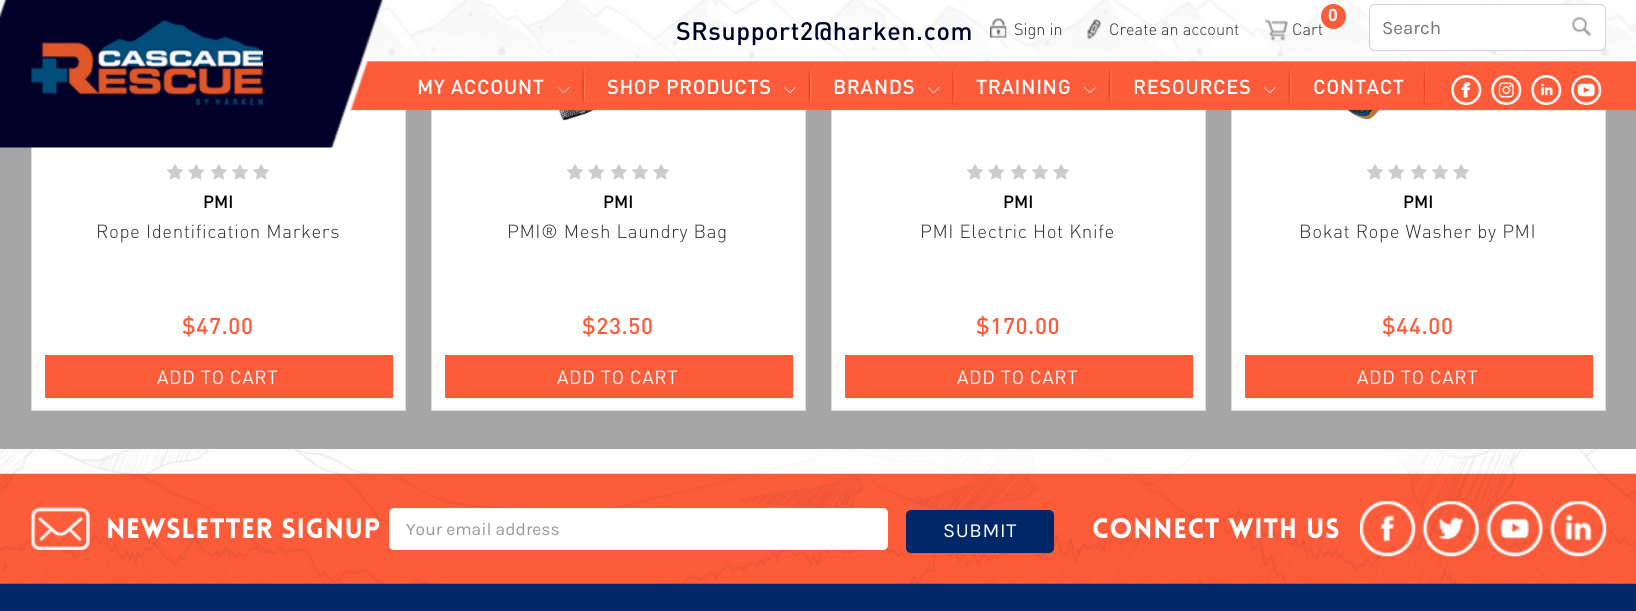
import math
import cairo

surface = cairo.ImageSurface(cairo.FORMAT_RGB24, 1636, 611)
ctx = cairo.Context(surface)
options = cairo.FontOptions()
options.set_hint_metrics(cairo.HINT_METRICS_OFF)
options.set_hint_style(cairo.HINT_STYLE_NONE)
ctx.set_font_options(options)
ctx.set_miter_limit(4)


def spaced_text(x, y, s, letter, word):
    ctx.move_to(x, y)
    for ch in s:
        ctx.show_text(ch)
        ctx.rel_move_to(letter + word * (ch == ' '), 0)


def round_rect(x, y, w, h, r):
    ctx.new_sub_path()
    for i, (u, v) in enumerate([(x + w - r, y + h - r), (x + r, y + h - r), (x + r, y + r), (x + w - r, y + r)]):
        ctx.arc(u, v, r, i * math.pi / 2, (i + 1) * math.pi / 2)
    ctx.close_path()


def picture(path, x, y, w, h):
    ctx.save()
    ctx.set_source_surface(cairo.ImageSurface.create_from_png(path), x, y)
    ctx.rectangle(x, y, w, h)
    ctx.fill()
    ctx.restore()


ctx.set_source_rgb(1, 1, 1)
ctx.paint()
ctx.set_source_rgb(0.651, 0.651, 0.651)
ctx.rectangle(0, 109, 1636, 340)
ctx.fill()
ctx.set_source_rgb(1, 1, 1)
ctx.rectangle(32, 109, 373, 301)
ctx.fill()
ctx.rectangle(31.5, -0.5, 374, 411)
ctx.set_source_rgb(0.863, 0.863, 0.863)
ctx.set_line_width(1)
ctx.stroke()
ctx.set_source_rgb(1, 1, 1)
ctx.rectangle(432, 109, 373, 301)
ctx.fill()
ctx.rectangle(431.5, -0.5, 374, 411)
ctx.set_source_rgb(0.863, 0.863, 0.863)
ctx.stroke()
picture("img23.png", 549, 109, 148, 12)
ctx.set_source_rgb(1, 1, 1)
ctx.rectangle(832, 109, 373, 301)
ctx.fill()
ctx.rectangle(831.5, -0.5, 374, 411)
ctx.set_source_rgb(0.863, 0.863, 0.863)
ctx.stroke()
ctx.set_source_rgb(1, 1, 1)
ctx.rectangle(1232, 109, 373, 301)
ctx.fill()
ctx.rectangle(1231.5, -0.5, 374, 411)
ctx.set_source_rgb(0.863, 0.863, 0.863)
ctx.stroke()
picture("img24.png", 1325, 109, 153, 11)
picture("img1.png", 0, 0, 1636, 148)
picture("img2.png", 31, 20, 232, 86)
ctx.select_font_face("DIN Medium")
ctx.set_font_size(25)
ctx.set_source_rgb(0, 0, 0.157)
spaced_text(676, 40, "SRsupport2@harken.com", 0.6, 0)
picture("img3.png", 990, 18, 17, 20)
ctx.select_font_face("DIN Light")
ctx.set_font_size(16.25)
ctx.set_source_rgb(0.153, 0.153, 0.153)
ctx.move_to(1014, 35)
ctx.show_text("Sign in")
picture("img4.png", 1087, 18, 15, 22)
ctx.move_to(1109, 35)
ctx.show_text("Create an account")
picture("img5.png", 1265, 19, 23, 22)
ctx.move_to(1292, 35)
ctx.show_text("Cart")
ctx.set_source_rgb(0.988, 0.361, 0.227)
ctx.new_path()
ctx.arc(1333.5, 16.5, 12.5, 0, 2 * math.pi)
ctx.fill()
ctx.select_font_face("Liberation Sans", cairo.FONT_SLANT_NORMAL, cairo.FONT_WEIGHT_BOLD)
ctx.set_font_size(17.5)
ctx.set_source_rgb(1, 1, 1)
ctx.move_to(1328, 21)
ctx.show_text("0")
round_rect(1369.5, 4.5, 236, 46, 5.5)
ctx.fill_preserve()
ctx.set_source_rgb(0.82, 0.82, 0.82)
ctx.stroke()
ctx.select_font_face("Karla")
ctx.set_font_size(18.75)
ctx.set_source_rgb(0.459, 0.459, 0.459)
ctx.move_to(1382, 34)
ctx.show_text("Search")
picture("img6.png", 1572, 17, 20, 20)
picture("img7.png", 582, 68, 4, 38)
ctx.select_font_face("DIN Medium")
ctx.set_font_size(20)
ctx.set_source_rgb(1, 1, 1)
spaced_text(417, 94, "MY ACCOUNT", 0.6, 0)
picture("img8.png", 558, 87, 12, 7)
picture("img9.png", 808, 67, 4, 39)
spaced_text(607, 94, "SHOP PRODUCTS", 0.6, 0)
picture("img10.png", 784, 87, 12, 6)
picture("img11.png", 952, 68, 4, 38)
spaced_text(833, 94, "BRANDS", 0.6, 0)
picture("img8.png", 928, 87, 12, 7)
picture("img12.png", 1108, 68, 4, 38)
spaced_text(976, 94, "TRAINING", 0.6, 0)
picture("img10.png", 1084, 87, 12, 6)
picture("img13.png", 1288, 68, 4, 38)
spaced_text(1133, 94, "RESOURCES", 0.6, 0)
picture("img10.png", 1264, 87, 12, 6)
picture("img14.png", 1423, 68, 4, 38)
spaced_text(1313, 94, "CONTACT", 0.6, 0)
picture("img15.png", 1451, 75, 31, 30)
picture("img16.png", 1491, 75, 31, 30)
picture("img17.png", 1531, 75, 31, 30)
picture("img18.png", 1571, 75, 31, 30)
picture("img19.png", 0, 449, 1601, 25)
picture("img20.png", 167, 164, 16, 16)
picture("img21.png", 188, 164, 17, 16)
picture("img22.png", 210, 164, 17, 16)
picture("img20.png", 232, 164, 16, 16)
picture("img21.png", 253, 164, 17, 16)
ctx.set_font_size(17.5)
ctx.set_source_rgb(0, 0, 0)
ctx.move_to(203, 208)
ctx.show_text("PMI")
ctx.select_font_face("DIN Light")
ctx.set_font_size(18.75)
ctx.set_source_rgb(0.18, 0.184, 0.184)
spaced_text(96, 238, "Rope Identification Markers", 0.6, 0)
ctx.select_font_face("DIN Medium")
ctx.set_font_size(22.5)
ctx.set_source_rgb(0.988, 0.361, 0.227)
spaced_text(182, 334, "$47.00", 0.6, 0)
ctx.rectangle(45, 355, 348, 43)
ctx.fill()
ctx.select_font_face("DIN")
ctx.set_font_size(18.75)
ctx.set_source_rgb(1, 1, 1)
spaced_text(157, 384, "ADD TO CART", 0.6, 0)
picture("img20.png", 567, 164, 16, 16)
picture("img21.png", 588, 164, 17, 16)
picture("img22.png", 610, 164, 17, 16)
picture("img20.png", 632, 164, 16, 16)
picture("img21.png", 653, 164, 17, 16)
ctx.select_font_face("DIN Medium")
ctx.set_font_size(17.5)
ctx.set_source_rgb(0, 0, 0)
ctx.move_to(603, 208)
ctx.show_text("PMI")
ctx.select_font_face("DIN Light")
ctx.set_font_size(18.75)
ctx.set_source_rgb(0.18, 0.184, 0.184)
spaced_text(507, 238, "PMI® Mesh Laundry Bag", 0.6, 0)
ctx.select_font_face("DIN Medium")
ctx.set_font_size(22.5)
ctx.set_source_rgb(0.988, 0.361, 0.227)
spaced_text(582, 334, "$23.50", 0.6, 0)
ctx.rectangle(445, 355, 348, 43)
ctx.fill()
ctx.select_font_face("DIN")
ctx.set_font_size(18.75)
ctx.set_source_rgb(1, 1, 1)
spaced_text(557, 384, "ADD TO CART", 0.6, 0)
picture("img20.png", 967, 164, 16, 16)
picture("img21.png", 988, 164, 17, 16)
picture("img22.png", 1010, 164, 17, 16)
picture("img20.png", 1032, 164, 16, 16)
picture("img21.png", 1053, 164, 17, 16)
ctx.select_font_face("DIN Medium")
ctx.set_font_size(17.5)
ctx.set_source_rgb(0, 0, 0)
ctx.move_to(1003, 208)
ctx.show_text("PMI")
ctx.select_font_face("DIN Light")
ctx.set_font_size(18.75)
ctx.set_source_rgb(0.18, 0.184, 0.184)
spaced_text(920, 238, "PMI Electric Hot Knife", 0.6, 0)
ctx.select_font_face("DIN Medium")
ctx.set_font_size(22.5)
ctx.set_source_rgb(0.988, 0.361, 0.227)
spaced_text(976, 334, "$170.00", 0.6, 0)
ctx.rectangle(845, 355, 348, 43)
ctx.fill()
ctx.select_font_face("DIN")
ctx.set_font_size(18.75)
ctx.set_source_rgb(1, 1, 1)
spaced_text(957, 384, "ADD TO CART", 0.6, 0)
picture("img20.png", 1367, 164, 16, 16)
picture("img21.png", 1388, 164, 17, 16)
picture("img22.png", 1410, 164, 17, 16)
picture("img20.png", 1432, 164, 16, 16)
picture("img21.png", 1453, 164, 17, 16)
ctx.select_font_face("DIN Medium")
ctx.set_font_size(17.5)
ctx.set_source_rgb(0, 0, 0)
ctx.move_to(1403, 208)
ctx.show_text("PMI")
ctx.select_font_face("DIN Light")
ctx.set_font_size(18.75)
ctx.set_source_rgb(0.18, 0.184, 0.184)
spaced_text(1299, 238, "Bokat Rope Washer by PMI", 0.6, 0)
ctx.select_font_face("DIN Medium")
ctx.set_font_size(22.5)
ctx.set_source_rgb(0.988, 0.361, 0.227)
spaced_text(1382, 334, "$44.00", 0.6, 0)
ctx.rectangle(1245, 355, 348, 43)
ctx.fill()
ctx.select_font_face("DIN")
ctx.set_font_size(18.75)
ctx.set_source_rgb(1, 1, 1)
spaced_text(1357, 384, "ADD TO CART", 0.6, 0)
ctx.set_source_rgb(0, 0.157, 0.408)
ctx.rectangle(0, 583, 1636, 28)
ctx.fill()
picture("img25.png", 0, 473, 1636, 111)
picture("img26.png", 31, 507, 59, 43)
ctx.select_font_face("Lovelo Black")
ctx.set_font_size(27.5)
ctx.set_source_rgb(1, 1, 1)
spaced_text(106, 538, "Newsletter signup", 0.6, 0)
round_rect(389, 508, 499, 42, 5)
ctx.fill()
ctx.select_font_face("Karla")
ctx.set_font_size(17.5)
ctx.set_source_rgb(0.6, 0.6, 0.6)
ctx.move_to(406, 535)
ctx.show_text("Your email address")
ctx.set_source_rgb(0, 0.157, 0.408)
round_rect(906, 510, 148, 43, 5)
ctx.fill()
ctx.set_font_size(20)
ctx.set_source_rgb(1, 1, 1)
spaced_text(943, 537, "SUBMIT", 0.6, 0)
ctx.select_font_face("Lovelo Black")
ctx.set_font_size(27.5)
spaced_text(1092, 538, "Connect With Us", 0.6, 0)
picture("img27.png", 1360, 501, 56, 56)
picture("img28.png", 1422, 501, 58, 56)
picture("img29.png", 1486, 501, 58, 56)
picture("img30.png", 1550, 501, 57, 56)
surface.write_to_png("page.png")
